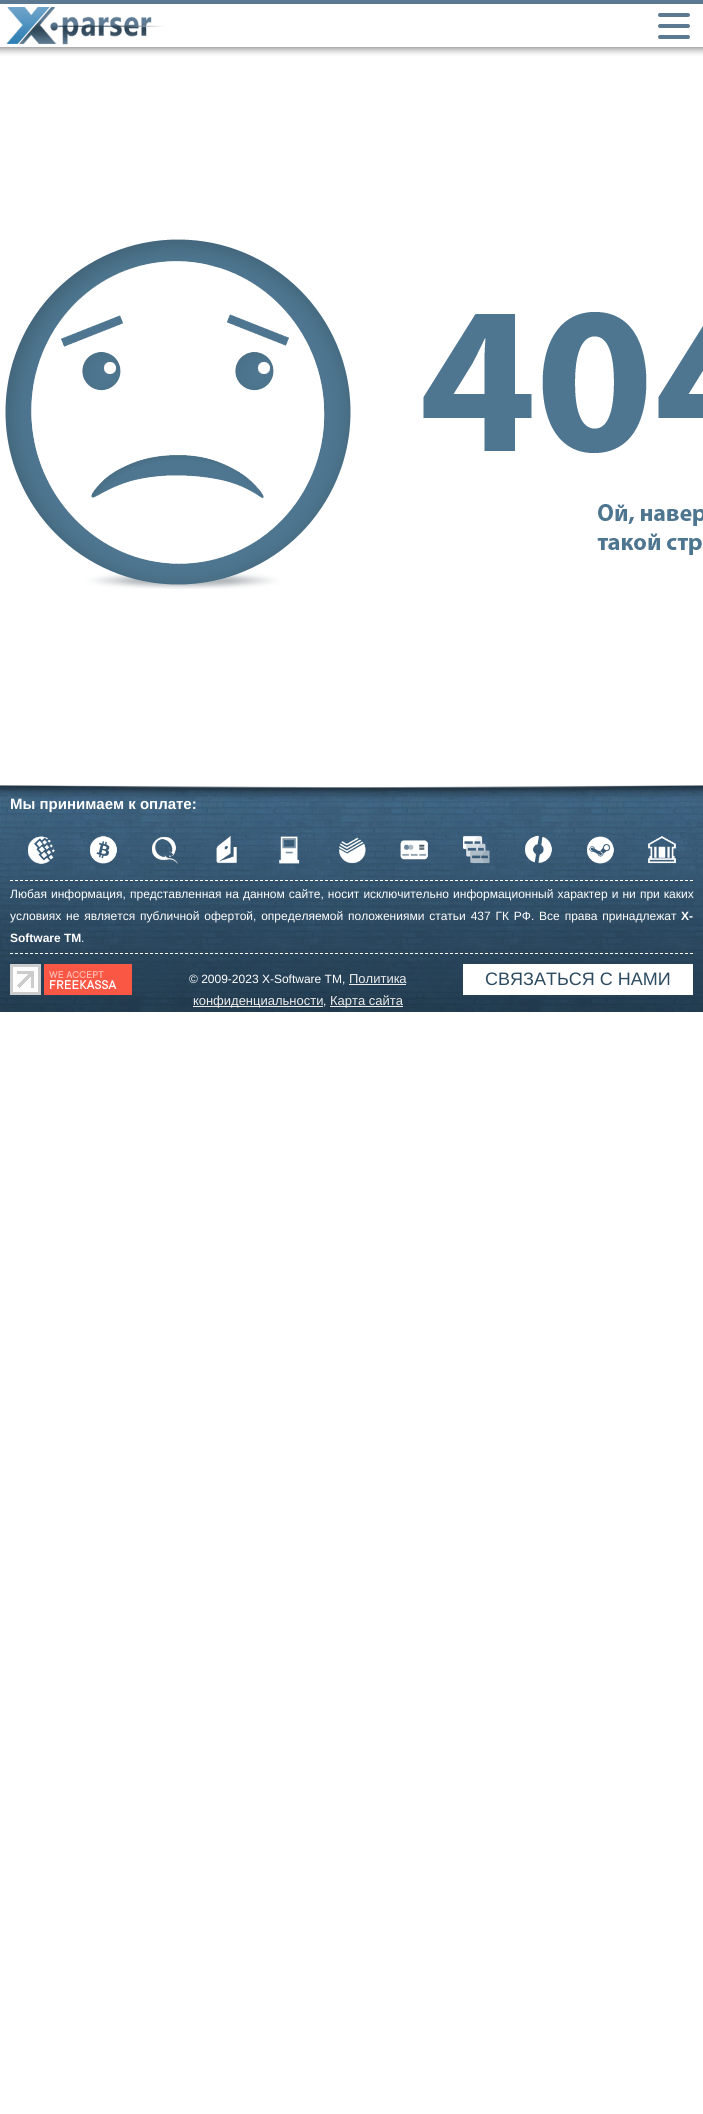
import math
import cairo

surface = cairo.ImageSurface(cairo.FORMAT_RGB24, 703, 2114)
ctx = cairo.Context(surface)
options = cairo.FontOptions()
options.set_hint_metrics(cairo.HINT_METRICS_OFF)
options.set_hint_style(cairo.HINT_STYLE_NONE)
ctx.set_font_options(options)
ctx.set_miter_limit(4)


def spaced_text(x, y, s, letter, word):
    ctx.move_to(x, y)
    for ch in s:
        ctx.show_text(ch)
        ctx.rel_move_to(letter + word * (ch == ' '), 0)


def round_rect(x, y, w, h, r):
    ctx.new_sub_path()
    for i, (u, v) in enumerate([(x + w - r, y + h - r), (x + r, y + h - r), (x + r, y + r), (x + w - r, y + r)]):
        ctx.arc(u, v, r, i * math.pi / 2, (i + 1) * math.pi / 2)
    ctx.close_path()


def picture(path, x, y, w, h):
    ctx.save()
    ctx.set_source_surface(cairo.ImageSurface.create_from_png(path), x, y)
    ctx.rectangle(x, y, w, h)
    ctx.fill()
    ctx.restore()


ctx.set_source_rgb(1, 1, 1)
ctx.paint()
picture("img1.png", 0, 47, 703, 9)
ctx.set_source_rgb(0.361, 0.475, 0.573)
ctx.rectangle(0, 0, 703, 4)
ctx.fill()
picture("img2.png", 6, 7, 159, 38)
round_rect(658, 13, 32, 4, 2)
ctx.fill()
round_rect(658, 24, 32, 4, 2)
ctx.fill()
round_rect(658, 35, 32, 4, 2)
ctx.fill()
picture("img3.png", 5, 239, 698, 350)
picture("img4.png", 0, 785, 703, 227)
picture("img5.png", 0, 775, 703, 25)
ctx.select_font_face("Liberation Sans", cairo.FONT_SLANT_NORMAL, cairo.FONT_WEIGHT_BOLD)
ctx.set_font_size(15)
ctx.set_source_rgb(1, 1, 1)
ctx.move_to(10, 809)
ctx.show_text("Мы принимаем к оплате:")
picture("img6.png", 28, 836, 27, 28)
picture("img7.png", 90, 836, 27, 28)
picture("img8.png", 152, 837, 26, 27)
picture("img9.png", 216, 836, 21, 28)
picture("img10.png", 279, 836, 21, 28)
picture("img11.png", 339, 837, 27, 27)
picture("img12.png", 400, 840, 28, 20)
picture("img13.png", 463, 836, 27, 28)
picture("img14.png", 525, 835, 27, 28)
picture("img15.png", 587, 836, 27, 28)
picture("img16.png", 648, 835, 28, 29)
ctx.new_path()
ctx.move_to(10, 880.5)
ctx.line_to(693, 880.5)
ctx.set_line_width(1)
ctx.set_dash([3, 2])
ctx.stroke()
ctx.new_path()
ctx.move_to(10, 953.5)
ctx.line_to(693, 953.5)
ctx.stroke()
ctx.select_font_face("Liberation Sans")
ctx.set_font_size(12)
spaced_text(10, 898, "Любая информация, представленная на данном сайте, носит исключительно информационный характер и ни при каких", 0, 0.75)
spaced_text(10, 920, "условиях не является публичной офертой, определяемой положениями статьи 437 ГК РФ. Все права принадлежат", 0, 1.5)
ctx.select_font_face("Liberation Sans", cairo.FONT_SLANT_NORMAL, cairo.FONT_WEIGHT_BOLD)
ctx.move_to(681, 920)
ctx.show_text("X-")
ctx.move_to(10, 942)
ctx.show_text("Software TM")
ctx.select_font_face("Liberation Sans")
ctx.move_to(81, 942)
ctx.show_text(".")
picture("img17.png", 10, 964, 31, 31)
picture("img18.png", 44, 964, 88, 31)
ctx.move_to(189, 983)
ctx.show_text("© 2009-2023 X-Software TM,")
ctx.set_font_size(13)
ctx.set_source_rgb(0.925, 0.925, 0.925)
ctx.move_to(349, 983)
ctx.show_text("Политика")
ctx.rectangle(349, 984, 57, 1)
ctx.fill()
ctx.rectangle(193, 1006, 130, 1)
ctx.fill()
ctx.move_to(193, 1005)
ctx.show_text("конфиденциальности")
ctx.set_font_size(12)
ctx.set_source_rgb(1, 1, 1)
ctx.move_to(323, 1005)
ctx.show_text(",")
ctx.set_source_rgb(0.925, 0.925, 0.925)
ctx.rectangle(330, 1006, 73, 1)
ctx.fill()
ctx.set_font_size(13)
ctx.move_to(330, 1005)
ctx.show_text("Карта сайта")
ctx.set_source_rgb(1, 1, 1)
ctx.rectangle(463, 964, 230, 31)
ctx.fill()
ctx.set_font_size(18)
ctx.set_source_rgb(0.173, 0.29, 0.376)
ctx.move_to(485, 985)
ctx.show_text("СВЯЗАТЬСЯ С НАМИ")
surface.write_to_png("page.png")
